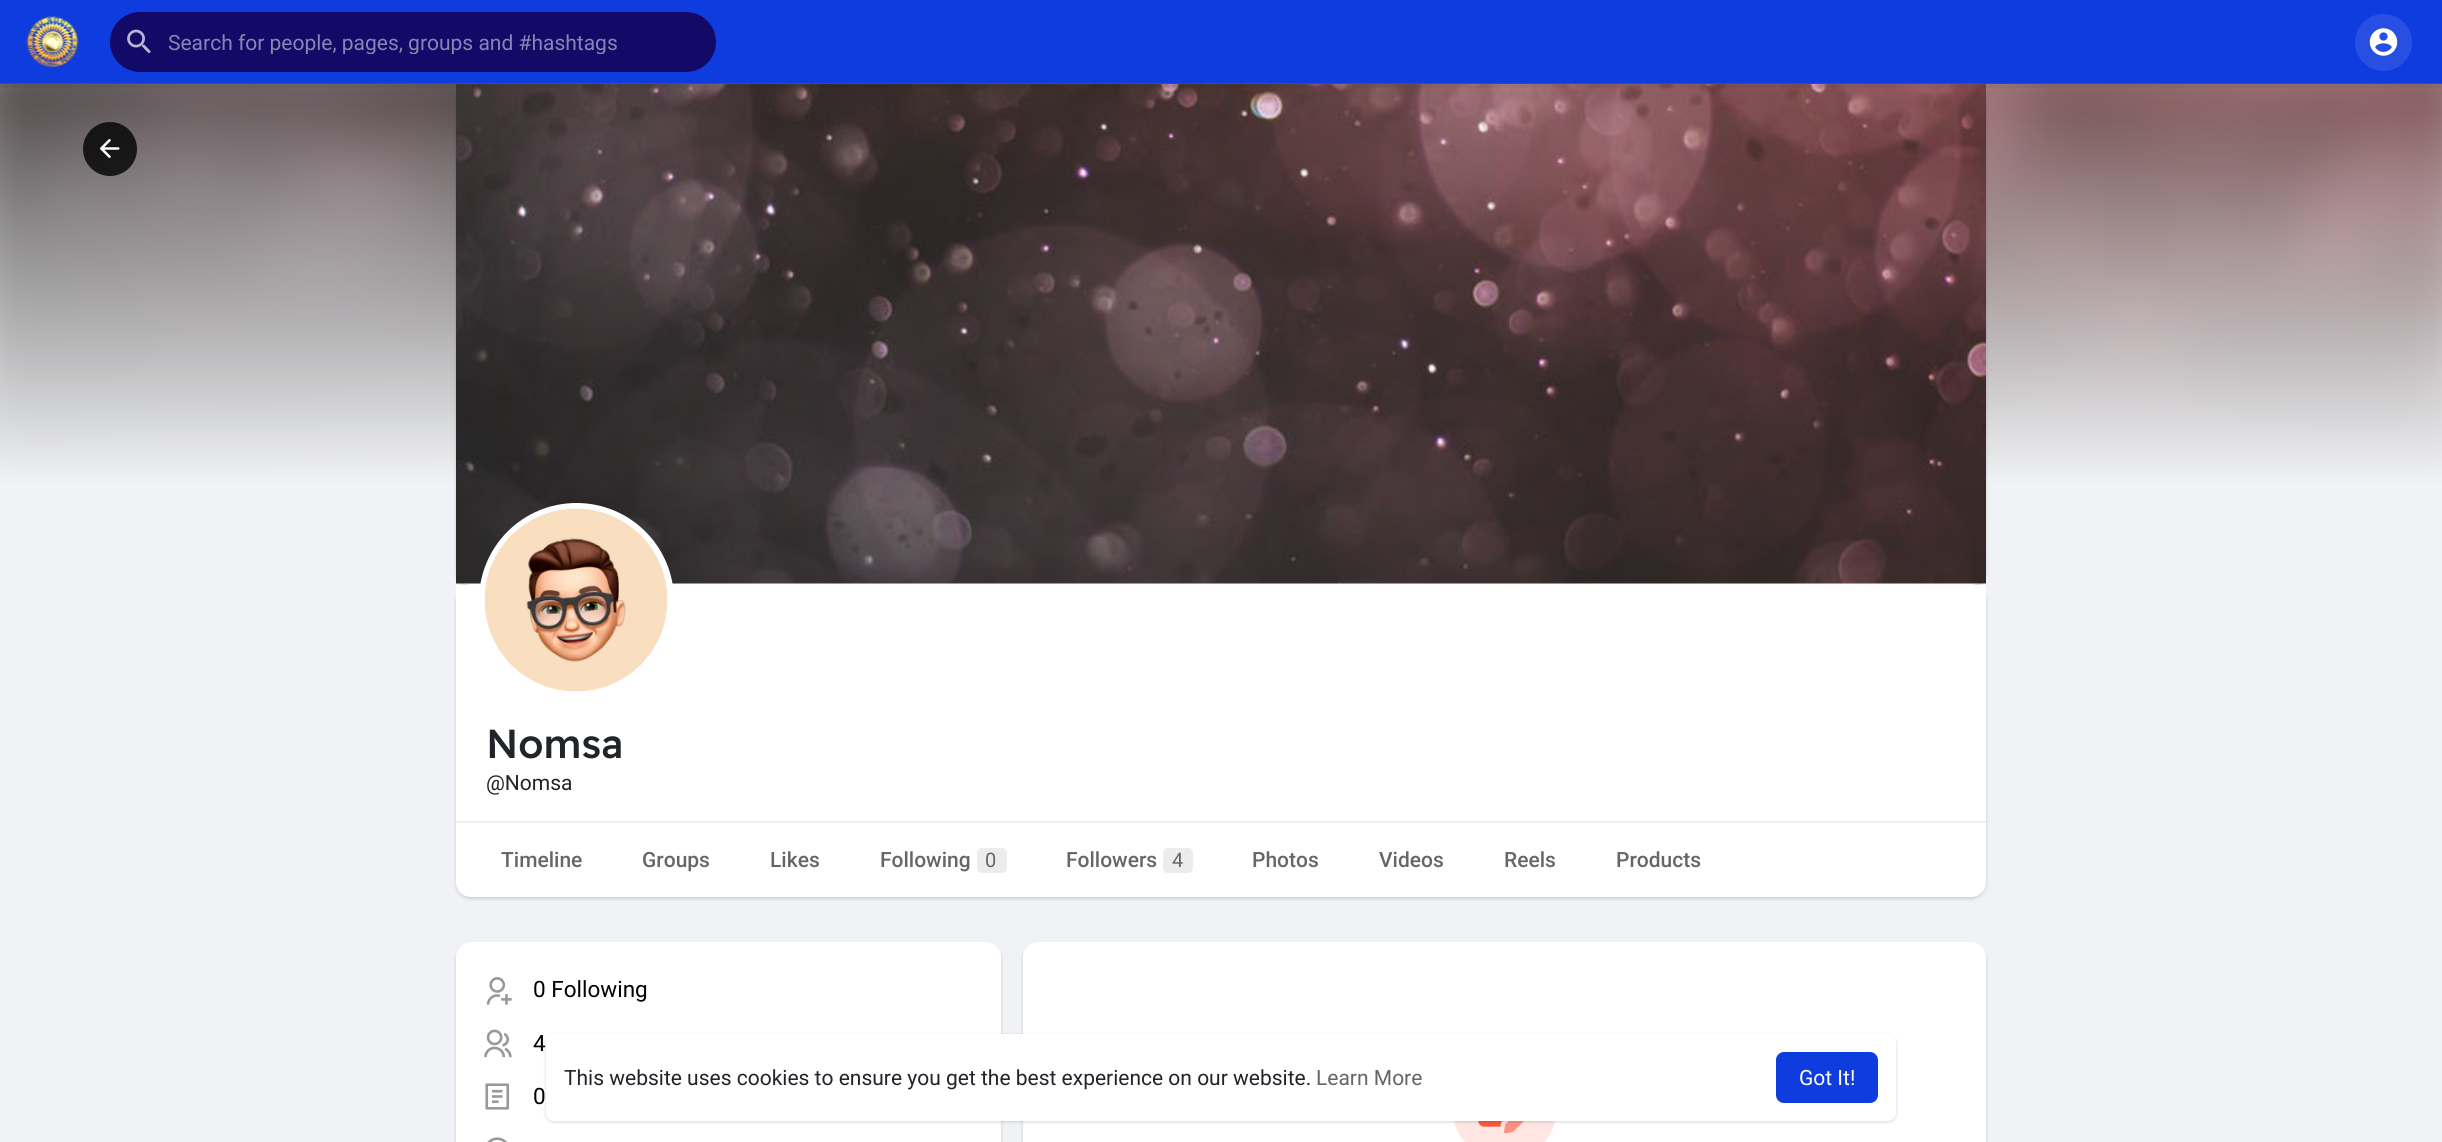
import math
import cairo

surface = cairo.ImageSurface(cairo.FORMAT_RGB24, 2442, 1142)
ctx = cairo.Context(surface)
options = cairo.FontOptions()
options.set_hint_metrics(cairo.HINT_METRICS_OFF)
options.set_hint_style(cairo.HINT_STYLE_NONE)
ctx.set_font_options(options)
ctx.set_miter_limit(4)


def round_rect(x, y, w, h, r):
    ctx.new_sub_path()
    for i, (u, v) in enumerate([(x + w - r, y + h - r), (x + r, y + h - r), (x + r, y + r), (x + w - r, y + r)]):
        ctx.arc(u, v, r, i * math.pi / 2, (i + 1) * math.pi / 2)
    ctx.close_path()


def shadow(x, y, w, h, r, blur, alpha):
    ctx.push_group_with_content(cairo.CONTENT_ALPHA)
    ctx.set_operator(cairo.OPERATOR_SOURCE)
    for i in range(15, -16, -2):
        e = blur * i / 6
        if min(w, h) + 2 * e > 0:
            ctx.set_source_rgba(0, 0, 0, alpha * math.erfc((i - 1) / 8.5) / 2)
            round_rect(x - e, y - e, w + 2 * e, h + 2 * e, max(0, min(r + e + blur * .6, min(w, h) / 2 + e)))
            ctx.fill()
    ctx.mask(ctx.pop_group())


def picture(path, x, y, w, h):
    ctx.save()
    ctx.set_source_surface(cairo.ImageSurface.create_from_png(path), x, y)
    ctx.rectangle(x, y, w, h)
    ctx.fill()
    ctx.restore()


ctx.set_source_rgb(0.941, 0.949, 0.961)
ctx.paint()
picture("img6.png", 0, 84, 2442, 398)
gradient = cairo.LinearGradient(1221, 84, 1221, 585)
gradient.add_color_stop_rgba(0, 1, 1, 1, 0.1)
gradient.add_color_stop_rgba(0.8, 0.941, 0.949, 0.961, 1)
gradient.add_color_stop_rgba(1, 0.941, 0.949, 0.961, 1)
ctx.set_source(gradient)
ctx.rectangle(0, 84, 2442, 398)
ctx.fill()
ctx.set_source_rgb(0, 0, 0)
shadow(456, 86, 1530, 501, 15, 1.5, 0.06)
shadow(456, 86, 1530, 501, 15, 2, 0.1)
ctx.set_source_rgb(0.059, 0.235, 0.875)
ctx.rectangle(0, 0, 2442, 84)
ctx.fill()
picture("img1.png", 26, 16, 53, 52)
ctx.set_source_rgb(0.075, 0.039, 0.404)
round_rect(110, 12, 606, 60, 30)
ctx.fill()
picture("img2.png", 127, 29, 24, 24)
ctx.save()
ctx.rectangle(168, 30, 512, 24)
ctx.clip()
ctx.select_font_face("Roboto")
ctx.set_font_size(21)
ctx.set_source_rgb(0.537, 0.522, 0.702)
ctx.move_to(168, 50)
ctx.show_text("Search for people, pages, groups and #hashtags")
ctx.restore()
ctx.set_source_rgb(1, 1, 1)
round_rect(456, 84, 1530, 501, 15)
ctx.fill()
picture("img5.png", 456, 84, 1530, 500)
picture("img3.png", 0, 83, 2442, 5)
ctx.set_source_rgb(0.153, 0.314, 0.886)
ctx.arc(2383.5, 42.5, 28.5, 0, 2 * math.pi)
ctx.fill()
picture("img4.png", 2369, 28, 29, 28)
ctx.set_source_rgba(0, 0, 0, 0.8)
ctx.arc(110, 149, 27, 0, 2 * math.pi)
ctx.fill()
picture("img7.png", 100, 139, 20, 19)
ctx.set_source_rgb(0, 0, 0)
shadow(456, 587, 1530, 312, 15, 1.5, 0.06)
shadow(456, 587, 1530, 312, 15, 2, 0.1)
ctx.set_source_rgb(1, 1, 1)
ctx.new_path()
ctx.move_to(456, 585)
ctx.line_to(1986, 585)
ctx.line_to(1986, 882)
ctx.curve_to(1986, 890.5, 1979.5, 897, 1971, 897)
ctx.line_to(471, 897)
ctx.curve_to(462.5, 897, 456, 890.5, 456, 882)
ctx.close_path()
ctx.fill()
ctx.arc(576.5, 600.5, 97.5, 0, 2 * math.pi)
ctx.fill()
picture("img8.png", 484, 508, 184, 184)
ctx.select_font_face("Readex Pro Medium")
ctx.set_font_size(40.5)
ctx.set_source_rgb(0.129, 0.145, 0.161)
ctx.move_to(486, 758)
ctx.show_text("Nomsa")
ctx.select_font_face("Roboto")
ctx.set_font_size(21)
ctx.move_to(486, 790)
ctx.show_text("@Nomsa")
ctx.set_source_rgb(0.933, 0.933, 0.933)
ctx.rectangle(456, 821, 1530, 2)
ctx.fill()
ctx.select_font_face("Roboto Medium")
ctx.set_source_rgb(0.4, 0.4, 0.4)
ctx.move_to(501, 867)
ctx.show_text("Timeline")
ctx.move_to(642, 867)
ctx.show_text("Groups")
ctx.move_to(770, 867)
ctx.show_text("Likes")
ctx.move_to(880, 867)
ctx.show_text("Following")
ctx.set_source_rgb(0.922, 0.922, 0.922)
round_rect(977, 848, 30, 25, 5)
ctx.fill()
ctx.select_font_face("Roboto")
ctx.set_font_size(20)
ctx.set_source_rgb(0.4, 0.4, 0.4)
ctx.move_to(985, 867)
ctx.show_text("0")
ctx.select_font_face("Roboto Medium")
ctx.set_font_size(21)
ctx.move_to(1066, 867)
ctx.show_text("Followers")
ctx.set_source_rgb(0.922, 0.922, 0.922)
round_rect(1163, 848, 30, 25, 5)
ctx.fill()
ctx.select_font_face("Roboto")
ctx.set_font_size(20)
ctx.set_source_rgb(0.4, 0.4, 0.4)
ctx.move_to(1172, 867)
ctx.show_text("4")
ctx.select_font_face("Roboto Medium")
ctx.set_font_size(21)
ctx.move_to(1252, 867)
ctx.show_text("Photos")
ctx.move_to(1379, 867)
ctx.show_text("Videos")
ctx.move_to(1504, 867)
ctx.show_text("Reels")
ctx.move_to(1616, 867)
ctx.show_text("Products")
ctx.set_source_rgb(0, 0, 0)
shadow(456, 944, 545, 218, 15, 1.5, 0.06)
shadow(456, 944, 545, 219, 15, 2, 0.1)
ctx.set_source_rgb(1, 1, 1)
round_rect(456, 942, 545, 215, 15)
ctx.fill()
picture("img9.png", 486, 977, 26, 28)
ctx.select_font_face("Roboto")
ctx.set_font_size(22.5)
ctx.set_source_rgb(0, 0, 0)
ctx.move_to(533, 997)
ctx.show_text("0 Following")
picture("img10.png", 484, 1029, 28, 29)
ctx.move_to(533, 1051)
ctx.show_text("4")
picture("img11.png", 485, 1083, 25, 27)
ctx.move_to(533, 1104)
ctx.show_text("0")
picture("img12.png", 487, 1137, 20, 5)
ctx.set_source_rgb(0, 0, 0)
shadow(1023, 944, 963, 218, 15, 1.5, 0.06)
shadow(1023, 944, 963, 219, 15, 2, 0.1)
ctx.set_source_rgb(1, 1, 1)
round_rect(1023, 942, 963, 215, 15)
ctx.fill()
picture("img13.png", 1453, 1121, 103, 21)
ctx.set_source_rgb(0, 0, 0)
shadow(546, 1035, 1350, 87, 8, 1.5, 0.06)
shadow(546, 1035, 1350, 87, 8, 2, 0.1)
ctx.set_source_rgb(1, 1, 1)
round_rect(546, 1034, 1350, 87, 8)
ctx.fill()
ctx.set_font_size(21)
ctx.set_source_rgb(0.129, 0.145, 0.161)
ctx.move_to(564, 1085)
ctx.show_text("This website uses cookies to ensure you get the best experience on our website.")
ctx.set_source_rgb(0.4, 0.4, 0.4)
ctx.move_to(1316, 1085)
ctx.show_text("Learn More")
ctx.set_source_rgb(0.059, 0.235, 0.875)
round_rect(1776, 1052, 102, 51, 8)
ctx.fill()
ctx.set_source_rgb(1, 1, 1)
ctx.move_to(1799, 1085)
ctx.show_text("Got It!")
surface.write_to_png("page.png")
